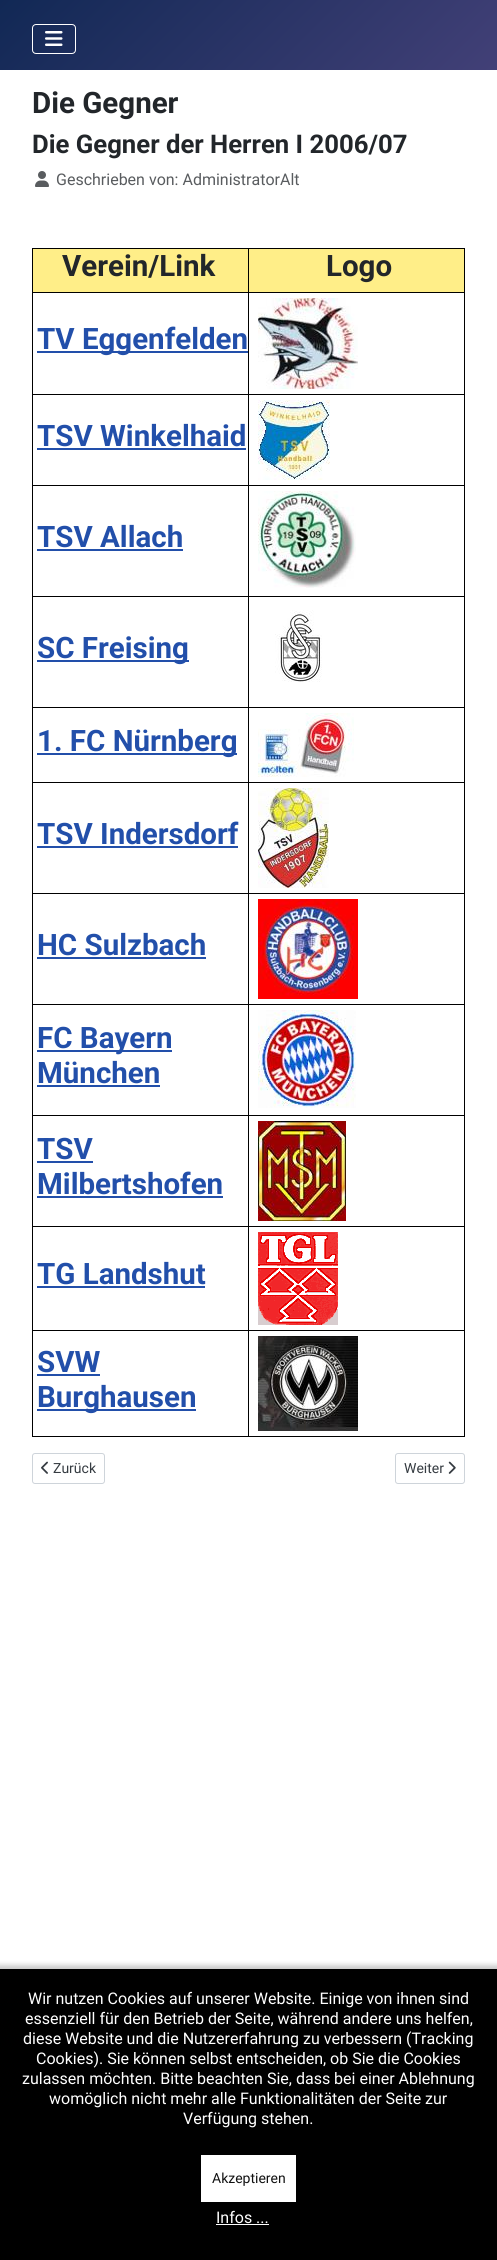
import math
import cairo

surface = cairo.ImageSurface(cairo.FORMAT_RGB24, 497, 2260)
ctx = cairo.Context(surface)
options = cairo.FontOptions()
options.set_hint_metrics(cairo.HINT_METRICS_OFF)
options.set_hint_style(cairo.HINT_STYLE_NONE)
ctx.set_font_options(options)
ctx.set_miter_limit(4)


def round_rect(x, y, w, h, r):
    ctx.new_sub_path()
    for i, (u, v) in enumerate([(x + w - r, y + h - r), (x + r, y + h - r), (x + r, y + r), (x + w - r, y + r)]):
        ctx.arc(u, v, r, i * math.pi / 2, (i + 1) * math.pi / 2)
    ctx.close_path()


def shadow(x, y, w, h, r, blur, alpha):
    ctx.push_group_with_content(cairo.CONTENT_ALPHA)
    ctx.set_operator(cairo.OPERATOR_SOURCE)
    for i in range(15, -16, -2):
        e = blur * i / 6
        if min(w, h) + 2 * e > 0:
            ctx.set_source_rgba(0, 0, 0, alpha * math.erfc((i - 1) / 8.5) / 2)
            round_rect(x - e, y - e, w + 2 * e, h + 2 * e, max(0, min(r + e + blur * .6, min(w, h) / 2 + e)))
            ctx.fill()
    ctx.mask(ctx.pop_group())


def picture(path, x, y, w, h):
    ctx.save()
    ctx.set_source_surface(cairo.ImageSurface.create_from_png(path), x, y)
    ctx.rectangle(x, y, w, h)
    ctx.fill()
    ctx.restore()


ctx.set_source_rgb(1, 1, 1)
ctx.paint()
gradient = cairo.LinearGradient(107, -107, 390, 177)
gradient.add_color_stop_rgba(0, 0.067, 0.157, 0.333, 1)
gradient.add_color_stop_rgba(1, 0.259, 0.251, 0.467, 1)
ctx.set_source(gradient)
ctx.rectangle(0, 0, 497, 70)
ctx.fill()
round_rect(32.5, 24.5, 43, 29, 3.5)
ctx.set_source_rgb(1, 1, 1)
ctx.set_line_width(1)
ctx.stroke()
picture("img1.png", 45, 31, 18, 15)
ctx.select_font_face("Roboto", cairo.FONT_SLANT_NORMAL, cairo.FONT_WEIGHT_BOLD)
ctx.set_font_size(29.5)
ctx.set_source_rgb(0.133, 0.149, 0.165)
ctx.move_to(32, 113)
ctx.show_text("Die Gegner")
ctx.set_font_size(25.7)
ctx.move_to(32, 153)
ctx.show_text("Die Gegner der Herren I 2006/07")
picture("img2.png", 35, 171, 14, 16)
ctx.select_font_face("Roboto")
ctx.set_font_size(16)
ctx.set_source_rgb(0.349, 0.361, 0.373)
ctx.move_to(56, 185)
ctx.show_text("Geschrieben von: AdministratorAlt")
ctx.set_source_rgb(1, 0.933, 0.533)
ctx.rectangle(33, 249, 431, 43)
ctx.fill()
ctx.set_source_rgb(0, 0, 0)
ctx.rectangle(32, 248, 433, 1)
ctx.fill()
ctx.rectangle(464, 248, 1, 45)
ctx.fill()
ctx.rectangle(32, 292, 433, 1)
ctx.fill()
ctx.rectangle(32, 248, 1, 45)
ctx.fill()
ctx.select_font_face("Roboto", cairo.FONT_SLANT_NORMAL, cairo.FONT_WEIGHT_BOLD)
ctx.set_font_size(29.5)
ctx.set_source_rgb(0.133, 0.149, 0.165)
ctx.move_to(62, 276)
ctx.show_text("Verein/Link")
ctx.move_to(326, 276)
ctx.show_text("Logo")
ctx.set_source_rgb(0.133, 0.31, 0.667)
ctx.rectangle(37, 351, 211, 2)
ctx.fill()
ctx.move_to(37, 349)
ctx.show_text("TV Eggenfelden")
ctx.set_source_rgb(0, 0, 0)
ctx.rectangle(248, 394, 217, 1)
ctx.fill()
ctx.rectangle(248, 485, 217, 1)
ctx.fill()
ctx.rectangle(248, 596, 217, 1)
ctx.fill()
ctx.rectangle(248, 707, 217, 1)
ctx.fill()
ctx.rectangle(248, 782, 217, 1)
ctx.fill()
ctx.rectangle(248, 893, 217, 1)
ctx.fill()
ctx.rectangle(248, 1004, 217, 1)
ctx.fill()
ctx.rectangle(248, 1115, 217, 1)
ctx.fill()
ctx.rectangle(248, 1226, 217, 1)
ctx.fill()
ctx.rectangle(248, 1330, 217, 1)
ctx.fill()
ctx.rectangle(464, 1330, 1, 107)
ctx.fill()
ctx.rectangle(248, 1436, 217, 1)
ctx.fill()
ctx.rectangle(248, 1330, 1, 107)
ctx.fill()
ctx.rectangle(32, 1330, 217, 1)
ctx.fill()
ctx.rectangle(248, 1226, 1, 105)
ctx.fill()
ctx.rectangle(32, 1226, 217, 1)
ctx.fill()
ctx.rectangle(248, 1115, 1, 112)
ctx.fill()
ctx.rectangle(32, 1115, 217, 1)
ctx.fill()
ctx.rectangle(248, 1004, 1, 112)
ctx.fill()
ctx.rectangle(32, 1004, 217, 1)
ctx.fill()
ctx.rectangle(248, 893, 1, 112)
ctx.fill()
ctx.rectangle(32, 893, 217, 1)
ctx.fill()
ctx.rectangle(248, 782, 1, 112)
ctx.fill()
ctx.rectangle(32, 782, 217, 1)
ctx.fill()
ctx.rectangle(248, 707, 1, 76)
ctx.fill()
ctx.rectangle(32, 707, 217, 1)
ctx.fill()
ctx.rectangle(248, 596, 1, 112)
ctx.fill()
ctx.rectangle(32, 596, 217, 1)
ctx.fill()
ctx.rectangle(248, 485, 1, 112)
ctx.fill()
ctx.rectangle(32, 485, 217, 1)
ctx.fill()
ctx.rectangle(248, 394, 1, 92)
ctx.fill()
ctx.rectangle(32, 394, 217, 1)
ctx.fill()
ctx.rectangle(248, 248, 1, 147)
ctx.fill()
picture("img3.png", 258, 298, 100, 91)
ctx.rectangle(32, 1436, 217, 1)
ctx.fill()
ctx.rectangle(32, 1330, 1, 107)
ctx.fill()
ctx.rectangle(32, 1226, 1, 105)
ctx.fill()
ctx.rectangle(32, 1115, 1, 112)
ctx.fill()
ctx.rectangle(32, 1004, 1, 112)
ctx.fill()
ctx.rectangle(32, 893, 1, 112)
ctx.fill()
ctx.rectangle(32, 782, 1, 112)
ctx.fill()
ctx.rectangle(32, 707, 1, 76)
ctx.fill()
ctx.rectangle(32, 596, 1, 112)
ctx.fill()
ctx.rectangle(32, 485, 1, 112)
ctx.fill()
ctx.rectangle(32, 292, 1, 194)
ctx.fill()
ctx.set_source_rgb(0.133, 0.31, 0.667)
ctx.move_to(37, 446)
ctx.show_text("TSV Winkelhaid")
ctx.rectangle(37, 448, 209, 2)
ctx.fill()
ctx.set_source_rgb(0, 0, 0)
ctx.rectangle(464, 1226, 1, 105)
ctx.fill()
ctx.rectangle(464, 1115, 1, 112)
ctx.fill()
ctx.rectangle(464, 1004, 1, 112)
ctx.fill()
ctx.rectangle(464, 893, 1, 112)
ctx.fill()
ctx.rectangle(464, 782, 1, 112)
ctx.fill()
ctx.rectangle(464, 707, 1, 76)
ctx.fill()
ctx.rectangle(464, 596, 1, 112)
ctx.fill()
ctx.rectangle(464, 485, 1, 112)
ctx.fill()
ctx.rectangle(464, 292, 1, 194)
ctx.fill()
picture("img4.png", 258, 400, 72, 80)
ctx.set_source_rgb(0.133, 0.31, 0.667)
ctx.move_to(37, 547)
ctx.show_text("TSV Allach")
ctx.rectangle(37, 549, 146, 2)
ctx.fill()
picture("img5.png", 258, 491, 98, 97)
ctx.rectangle(37, 660, 152, 2)
ctx.fill()
ctx.move_to(37, 658)
ctx.show_text("SC Freising")
picture("img6.png", 275, 610, 47, 72)
ctx.rectangle(37, 753, 200, 2)
ctx.fill()
ctx.move_to(37, 751)
ctx.show_text("1. FC Nürnberg")
picture("img7.png", 258, 713, 96, 64)
ctx.move_to(37, 844)
ctx.show_text("TSV Indersdorf")
ctx.rectangle(37, 846, 201, 2)
ctx.fill()
picture("img8.png", 258, 788, 71, 100)
ctx.move_to(37, 955)
ctx.show_text("HC Sulzbach")
ctx.rectangle(37, 957, 169, 2)
ctx.fill()
picture("img9.png", 258, 899, 100, 100)
ctx.rectangle(37, 1050, 135, 2)
ctx.fill()
ctx.move_to(37, 1048)
ctx.show_text("FC Bayern")
ctx.move_to(37, 1083)
ctx.show_text("München")
ctx.rectangle(37, 1085, 123, 2)
ctx.fill()
picture("img10.png", 258, 1010, 98, 98)
ctx.move_to(37, 1159)
ctx.show_text("TSV")
ctx.rectangle(37, 1161, 56, 2)
ctx.fill()
ctx.move_to(37, 1194)
ctx.show_text("Milbertshofen")
ctx.rectangle(37, 1196, 186, 2)
ctx.fill()
picture("img11.png", 258, 1121, 88, 100)
ctx.move_to(37, 1284)
ctx.show_text("TG Landshut")
ctx.rectangle(37, 1286, 168, 2)
ctx.fill()
picture("img12.png", 258, 1232, 80, 93)
ctx.move_to(37, 1372)
ctx.show_text("SVW")
ctx.rectangle(37, 1374, 63, 2)
ctx.fill()
ctx.rectangle(37, 1409, 159, 2)
ctx.fill()
ctx.move_to(37, 1407)
ctx.show_text("Burghausen")
picture("img13.png", 258, 1336, 100, 95)
round_rect(32.5, 1453.5, 72, 30, 2.5)
ctx.set_source_rgb(0.808, 0.831, 0.855)
ctx.stroke()
picture("img14.png", 41, 1461, 7, 13)
ctx.select_font_face("Roboto")
ctx.set_font_size(14)
ctx.set_source_rgb(0.208, 0.231, 0.255)
ctx.move_to(53, 1473)
ctx.show_text("Zurück")
round_rect(395.5, 1453.5, 69, 30, 2.5)
ctx.set_source_rgb(0.808, 0.831, 0.855)
ctx.stroke()
ctx.set_source_rgb(0.208, 0.231, 0.255)
ctx.move_to(404, 1473)
ctx.show_text("Weiter")
picture("img15.png", 448, 1461, 8, 13)
ctx.set_source_rgb(0, 0, 0)
shadow(-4, 1965, 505, 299, 0, 2.5, 0.21)
ctx.set_source_rgb(0, 0, 0)
ctx.rectangle(0, 1969, 497, 291)
ctx.fill()
ctx.set_font_size(16)
ctx.set_source_rgb(1, 1, 1)
ctx.move_to(28, 2004)
ctx.show_text("Wir nutzen Cookies auf unserer Website. Einige von ihnen sind")
ctx.move_to(25, 2024)
ctx.show_text("essenziell für den Betrieb der Seite, während andere uns helfen,")
ctx.move_to(23, 2044)
ctx.show_text("diese Website und die Nutzererfahrung zu verbessern (Tracking")
ctx.move_to(36, 2064)
ctx.show_text("Cookies). Sie können selbst entscheiden, ob Sie die Cookies")
ctx.move_to(22, 2084)
ctx.show_text("zulassen möchten. Bitte beachten Sie, dass bei einer Ablehnung")
ctx.move_to(49, 2104)
ctx.show_text("womöglich nicht mehr alle Funktionalitäten der Seite zur")
ctx.move_to(183, 2124)
ctx.show_text("Verfügung stehen.")
ctx.rectangle(201, 2155, 95, 47)
ctx.fill()
ctx.set_font_size(14)
ctx.set_source_rgb(0.067, 0.067, 0.067)
ctx.move_to(212, 2183)
ctx.show_text("Akzeptieren")
ctx.set_font_size(16)
ctx.set_source_rgb(1, 1, 1)
ctx.move_to(216, 2223)
ctx.show_text("Infos ...")
ctx.rectangle(216, 2224, 53, 1)
ctx.fill()
surface.write_to_png("page.png")
